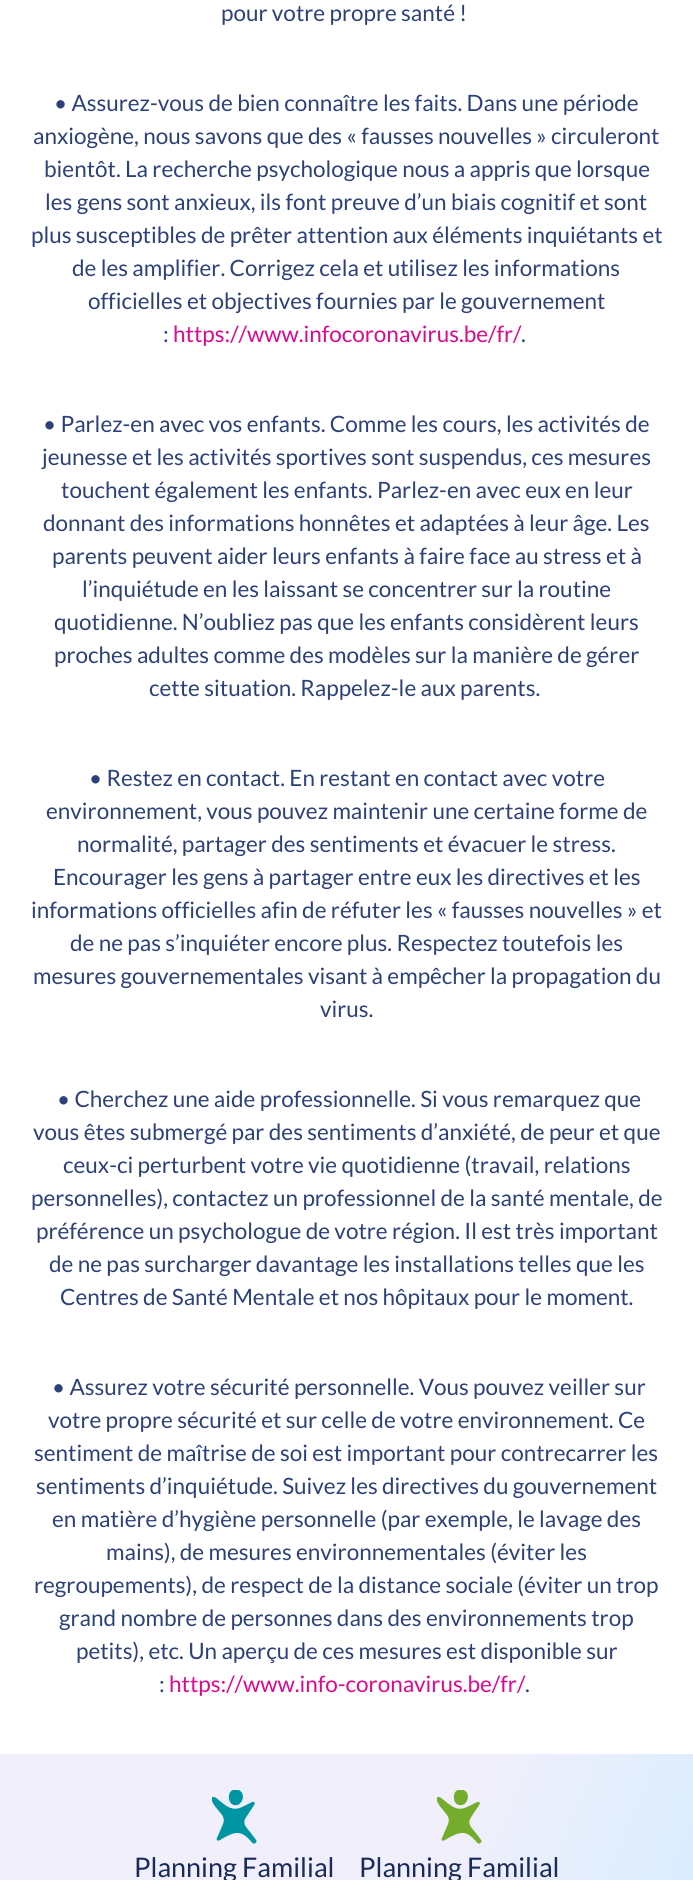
import math
import cairo

surface = cairo.ImageSurface(cairo.FORMAT_RGB24, 693, 1880)
ctx = cairo.Context(surface)
options = cairo.FontOptions()
options.set_hint_metrics(cairo.HINT_METRICS_OFF)
options.set_hint_style(cairo.HINT_STYLE_NONE)
ctx.set_font_options(options)
ctx.set_miter_limit(4)


def picture(path, x, y, w, h):
    ctx.save()
    ctx.set_source_surface(cairo.ImageSurface.create_from_png(path), x, y)
    ctx.rectangle(x, y, w, h)
    ctx.fill()
    ctx.restore()


ctx.set_source_rgb(1, 1, 1)
ctx.paint()
ctx.select_font_face("Lato")
ctx.set_font_size(22.5)
ctx.set_source_rgb(0.173, 0.255, 0.475)
ctx.move_to(221, 21)
ctx.show_text("pour votre propre santé !")
ctx.move_to(54, 111)
ctx.show_text("• Assurez-vous de bien connaître les faits. Dans une période")
ctx.move_to(33, 144)
ctx.show_text("anxiogène, nous savons que des « fausses nouvelles » circuleront")
ctx.move_to(44, 177)
ctx.show_text("bientôt. La recherche psychologique nous a appris que lorsque")
ctx.move_to(45, 210)
ctx.show_text("les gens sont anxieux, ils font preuve d’un biais cognitif et sont")
ctx.move_to(31, 243)
ctx.show_text("plus susceptibles de prêter attention aux éléments inquiétants et")
ctx.move_to(72, 276)
ctx.show_text("de les amplifier. Corrigez cela et utilisez les informations")
ctx.move_to(88, 309)
ctx.show_text("officielles et objectives fournies par le gouvernement")
ctx.move_to(163, 342)
ctx.show_text(":")
ctx.set_source_rgb(0.871, 0.031, 0.569)
ctx.move_to(173, 342)
ctx.show_text("https://www.infocoronavirus.be/fr/")
ctx.set_source_rgb(0.173, 0.255, 0.475)
ctx.move_to(521, 342)
ctx.show_text(".")
ctx.move_to(43, 432)
ctx.show_text("• Parlez-en avec vos enfants. Comme les cours, les activités de")
ctx.move_to(42, 465)
ctx.show_text("jeunesse et les activités sportives sont suspendus, ces mesures")
ctx.move_to(61, 498)
ctx.show_text("touchent également les enfants. Parlez-en avec eux en leur")
ctx.move_to(43, 531)
ctx.show_text("donnant des informations honnêtes et adaptées à leur âge. Les")
ctx.move_to(52, 564)
ctx.show_text("parents peuvent aider leurs enfants à faire face au stress et à")
ctx.move_to(82, 597)
ctx.show_text("l’inquiétude en les laissant se concentrer sur la routine")
ctx.move_to(54, 630)
ctx.show_text("quotidienne. N’oubliez pas que les enfants considèrent leurs")
ctx.move_to(54, 663)
ctx.show_text("proches adultes comme des modèles sur la manière de gérer")
ctx.move_to(149, 696)
ctx.show_text("cette situation. Rappelez-le aux parents.")
ctx.move_to(89, 786)
ctx.show_text("• Restez en contact. En restant en contact avec votre")
ctx.move_to(46, 819)
ctx.show_text("environnement, vous pouvez maintenir une certaine forme de")
ctx.move_to(77, 852)
ctx.show_text("normalité, partager des sentiments et évacuer le stress.")
ctx.move_to(53, 885)
ctx.show_text("Encourager les gens à partager entre eux les directives et les")
ctx.move_to(31, 918)
ctx.show_text("informations officielles afin de réfuter les « fausses nouvelles » et")
ctx.move_to(70, 951)
ctx.show_text("de ne pas s’inquiéter encore plus. Respectez toutefois les")
ctx.move_to(33, 984)
ctx.show_text("mesures gouvernementales visant à empêcher la propagation du")
ctx.move_to(320, 1017)
ctx.show_text("virus.")
ctx.move_to(57, 1107)
ctx.show_text("• Cherchez une aide professionnelle. Si vous remarquez que")
ctx.move_to(33, 1140)
ctx.show_text("vous êtes submergé par des sentiments d’anxiété, de peur et que")
ctx.move_to(63, 1173)
ctx.show_text("ceux-ci perturbent votre vie quotidienne (travail, relations")
ctx.move_to(31, 1206)
ctx.show_text("personnelles), contactez un professionnel de la santé mentale, de")
ctx.move_to(36, 1239)
ctx.show_text("préférence un psychologue de votre région. Il est très important")
ctx.move_to(49, 1272)
ctx.show_text("de ne pas surcharger davantage les installations telles que les")
ctx.move_to(60, 1305)
ctx.show_text("Centres de Santé Mentale et nos hôpitaux pour le moment.")
ctx.move_to(52, 1395)
ctx.show_text("• Assurez votre sécurité personnelle. Vous pouvez veiller sur")
ctx.move_to(48, 1428)
ctx.show_text("votre propre sécurité et sur celle de votre environnement. Ce")
ctx.move_to(34, 1461)
ctx.show_text("sentiment de maîtrise de soi est important pour contrecarrer les")
ctx.move_to(36, 1494)
ctx.show_text("sentiments d’inquiétude. Suivez les directives du gouvernement")
ctx.move_to(52, 1527)
ctx.show_text("en matière d’hygiène personnelle (par exemple, le lavage des")
ctx.move_to(106, 1560)
ctx.show_text("mains), de mesures environnementales (éviter les")
ctx.move_to(34, 1593)
ctx.show_text("regroupements), de respect de la distance sociale (éviter un trop")
ctx.move_to(59, 1626)
ctx.show_text("grand nombre de personnes dans des environnements trop")
ctx.move_to(76, 1659)
ctx.show_text("petits), etc. Un aperçu de ces mesures est disponible sur")
ctx.move_to(159, 1692)
ctx.show_text(":")
ctx.set_source_rgb(0.871, 0.031, 0.569)
ctx.move_to(169, 1692)
ctx.show_text("https://www.info-coronavirus.be/fr/")
ctx.set_source_rgb(0.173, 0.255, 0.475)
ctx.move_to(525, 1692)
ctx.show_text(".")
gradient = cairo.LinearGradient(-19, 1799, 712, 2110)
gradient.add_color_stop_rgba(0.56, 0.945, 0.937, 0.984, 1)
gradient.add_color_stop_rgba(1, 0.812, 0.925, 0.996, 1)
ctx.set_source(gradient)
ctx.rectangle(0, 1754, 693, 126)
ctx.fill()
picture("img1.png", 212, 1790, 45, 54)
ctx.set_font_size(27)
ctx.set_source_rgb(0.098, 0.169, 0.353)
ctx.move_to(134, 1877)
ctx.show_text("Planning Familial")
picture("img2.png", 437, 1790, 45, 54)
ctx.move_to(359, 1877)
ctx.show_text("Planning Familial")
surface.write_to_png("page.png")
